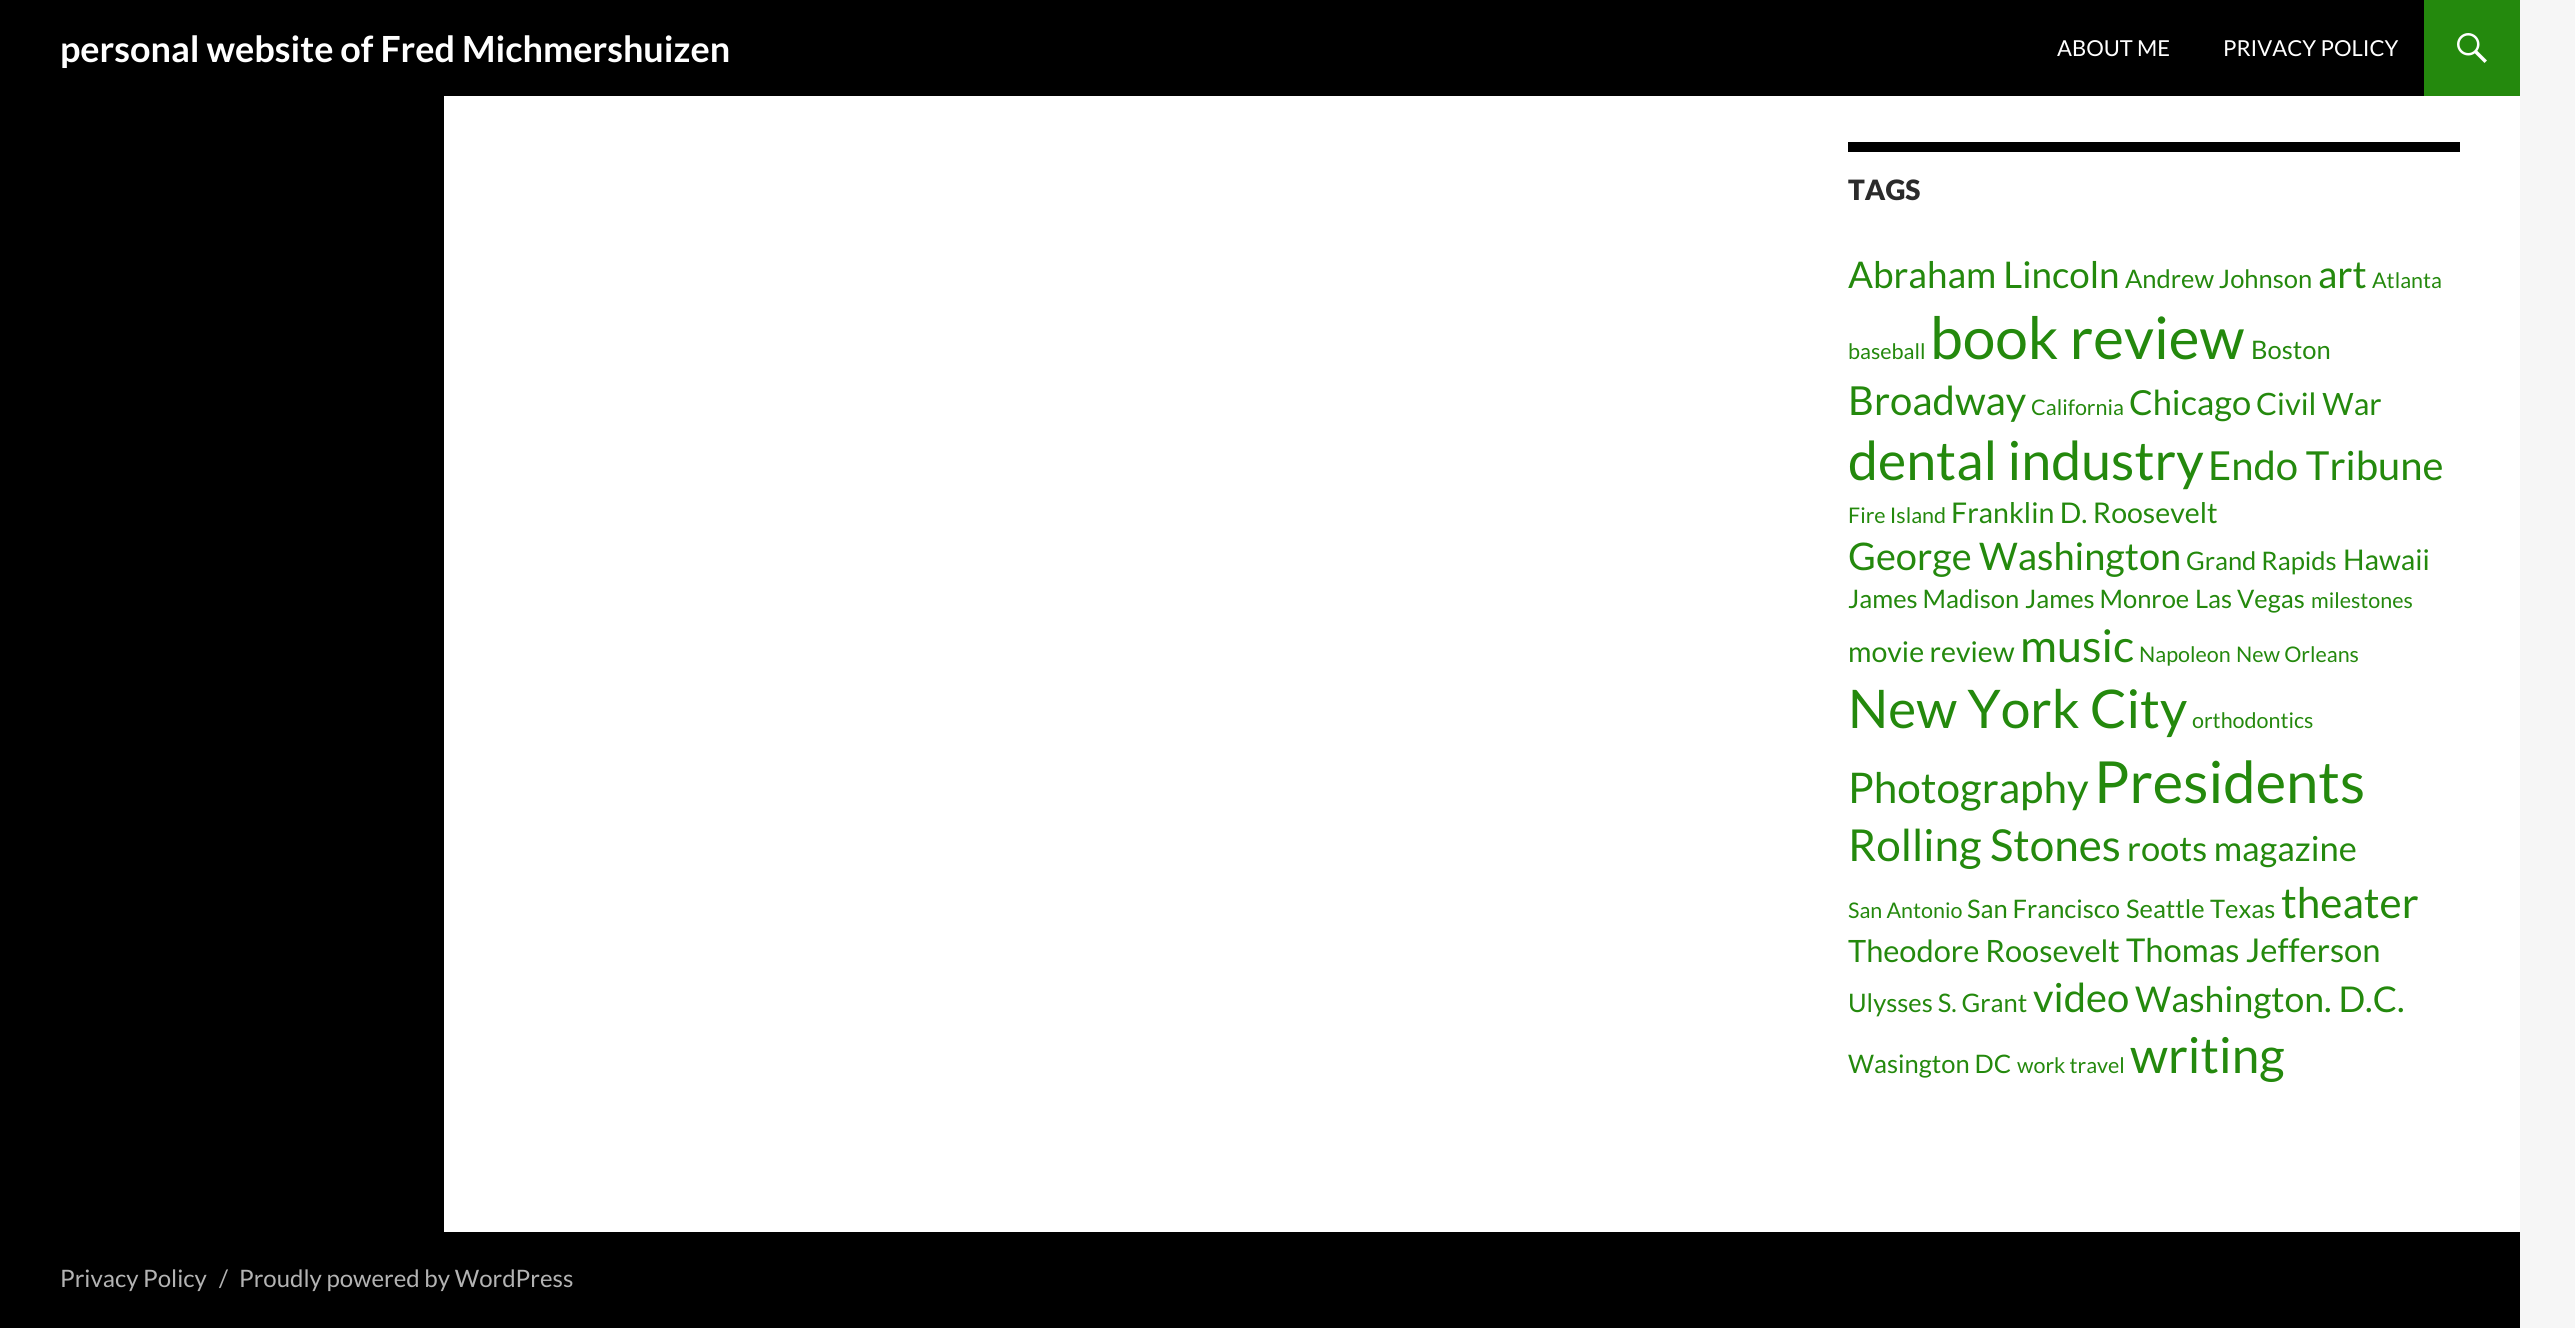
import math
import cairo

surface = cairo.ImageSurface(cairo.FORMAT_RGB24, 2575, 1328)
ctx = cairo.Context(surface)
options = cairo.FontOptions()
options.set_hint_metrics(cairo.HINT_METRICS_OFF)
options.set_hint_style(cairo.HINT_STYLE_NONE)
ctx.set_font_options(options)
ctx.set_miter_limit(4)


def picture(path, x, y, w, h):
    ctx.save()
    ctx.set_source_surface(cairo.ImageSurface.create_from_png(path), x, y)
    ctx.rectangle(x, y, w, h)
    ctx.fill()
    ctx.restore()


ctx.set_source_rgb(0.961, 0.961, 0.961)
ctx.paint()
ctx.set_source_rgb(1, 1, 1)
ctx.rectangle(444, 96, 2076, 1136)
ctx.fill()
ctx.set_source_rgb(0, 0, 0)
ctx.rectangle(0, 0, 2424, 96)
ctx.fill()
ctx.select_font_face("Lato", cairo.FONT_SLANT_NORMAL, cairo.FONT_WEIGHT_BOLD)
ctx.set_font_size(36)
ctx.set_source_rgb(1, 1, 1)
ctx.move_to(60, 62)
ctx.show_text("personal website of Fred Michmershuizen")
ctx.select_font_face("Lato")
ctx.set_font_size(22)
ctx.move_to(2057, 56)
ctx.show_text("ABOUT ME")
ctx.move_to(2223, 56)
ctx.show_text("PRIVACY POLICY")
ctx.set_source_rgb(0.141, 0.537, 0.051)
ctx.rectangle(2424, 0, 96, 96)
ctx.fill()
picture("img1.png", 2457, 33, 30, 30)
ctx.set_source_rgb(0, 0, 0)
ctx.rectangle(0, 96, 444, 1136)
ctx.fill()
ctx.rectangle(1848, 142, 612, 10)
ctx.fill()
ctx.select_font_face("Lato Black")
ctx.set_font_size(28)
ctx.set_source_rgb(0.169, 0.169, 0.169)
ctx.move_to(1848, 200)
ctx.show_text("TAGS")
ctx.select_font_face("Lato")
ctx.set_font_size(36.75)
ctx.set_source_rgb(0.141, 0.537, 0.051)
ctx.move_to(1848, 288)
ctx.show_text("Abraham Lincoln")
ctx.set_font_size(25.5)
ctx.move_to(2125, 288)
ctx.show_text("Andrew Johnson")
ctx.set_font_size(38)
ctx.move_to(2318, 288)
ctx.show_text("art")
ctx.set_font_size(21.5)
ctx.move_to(2372, 288)
ctx.show_text("Atlanta")
ctx.move_to(1848, 359)
ctx.show_text("baseball")
ctx.set_font_size(58.5)
ctx.move_to(1930, 359)
ctx.show_text("book review")
ctx.set_font_size(25.5)
ctx.move_to(2251, 359)
ctx.show_text("Boston")
ctx.set_font_size(40)
ctx.move_to(1848, 415)
ctx.show_text("Broadway")
ctx.set_font_size(21.5)
ctx.move_to(2031, 415)
ctx.show_text("California")
ctx.set_font_size(34.5)
ctx.move_to(2129, 415)
ctx.show_text("Chicago")
ctx.set_font_size(30.75)
ctx.move_to(2256, 415)
ctx.show_text("Civil War")
ctx.set_font_size(53.75)
ctx.move_to(1848, 480)
ctx.show_text("dental industry")
ctx.set_font_size(40)
ctx.move_to(2208, 480)
ctx.show_text("Endo Tribune")
ctx.set_font_size(21.5)
ctx.move_to(1848, 523)
ctx.show_text("Fire Island")
ctx.set_font_size(28.5)
ctx.move_to(1951, 523)
ctx.show_text("Franklin D. Roosevelt")
ctx.set_font_size(38)
ctx.move_to(1848, 570)
ctx.show_text("George Washington")
ctx.set_font_size(25.5)
ctx.move_to(2186, 570)
ctx.show_text("Grand Rapids")
ctx.set_font_size(28.5)
ctx.move_to(2343, 570)
ctx.show_text("Hawaii")
ctx.set_font_size(25.5)
ctx.move_to(1848, 608)
ctx.show_text("James Madison")
ctx.move_to(2025, 608)
ctx.show_text("James Monroe")
ctx.move_to(2195, 608)
ctx.show_text("Las Vegas")
ctx.set_font_size(21.5)
ctx.move_to(2311, 608)
ctx.show_text("milestones")
ctx.set_font_size(28.5)
ctx.move_to(1848, 662)
ctx.show_text("movie review")
ctx.set_font_size(45)
ctx.move_to(2020, 662)
ctx.show_text("music")
ctx.set_font_size(21.5)
ctx.move_to(2139, 662)
ctx.show_text("Napoleon")
ctx.move_to(2236, 662)
ctx.show_text("New Orleans")
ctx.set_font_size(53.25)
ctx.move_to(1848, 728)
ctx.show_text("New York City")
ctx.set_font_size(21.5)
ctx.move_to(2192, 728)
ctx.show_text("orthodontics")
ctx.set_font_size(42.25)
ctx.move_to(1848, 803)
ctx.show_text("Photography")
ctx.set_font_size(58)
ctx.move_to(2094, 803)
ctx.show_text("Presidents")
ctx.set_font_size(44)
ctx.move_to(1848, 861)
ctx.show_text("Rolling Stones")
ctx.set_font_size(34.5)
ctx.move_to(2127, 861)
ctx.show_text("roots magazine")
ctx.set_font_size(21.5)
ctx.move_to(1848, 918)
ctx.show_text("San Antonio")
ctx.set_font_size(25.5)
ctx.move_to(1967, 918)
ctx.show_text("San Francisco")
ctx.move_to(2126, 918)
ctx.show_text("Seattle")
ctx.move_to(2210, 918)
ctx.show_text("Texas")
ctx.set_font_size(42.25)
ctx.move_to(2281, 918)
ctx.show_text("theater")
ctx.set_font_size(30.75)
ctx.move_to(1848, 962)
ctx.show_text("Theodore Roosevelt")
ctx.set_font_size(32.75)
ctx.move_to(2126, 962)
ctx.show_text("Thomas Jefferson")
ctx.set_font_size(25.5)
ctx.move_to(1848, 1012)
ctx.show_text("Ulysses S. Grant")
ctx.set_font_size(40)
ctx.move_to(2033, 1012)
ctx.show_text("video")
ctx.set_font_size(35.5)
ctx.move_to(2135, 1012)
ctx.show_text("Washington. D.C.")
ctx.set_font_size(25.5)
ctx.move_to(1848, 1073)
ctx.show_text("Wasington DC")
ctx.set_font_size(21.5)
ctx.move_to(2017, 1073)
ctx.show_text("work travel")
ctx.set_font_size(49.5)
ctx.move_to(2130, 1073)
ctx.show_text("writing")
ctx.set_source_rgb(0, 0, 0)
ctx.rectangle(0, 1232, 2520, 96)
ctx.fill()
ctx.set_font_size(24)
ctx.set_source_rgb(0.702, 0.702, 0.702)
ctx.move_to(60, 1287)
ctx.show_text("Privacy Policy")
ctx.move_to(219, 1287)
ctx.show_text("/")
ctx.move_to(239, 1287)
ctx.show_text("Proudly powered by WordPress")
surface.write_to_png("page.png")
